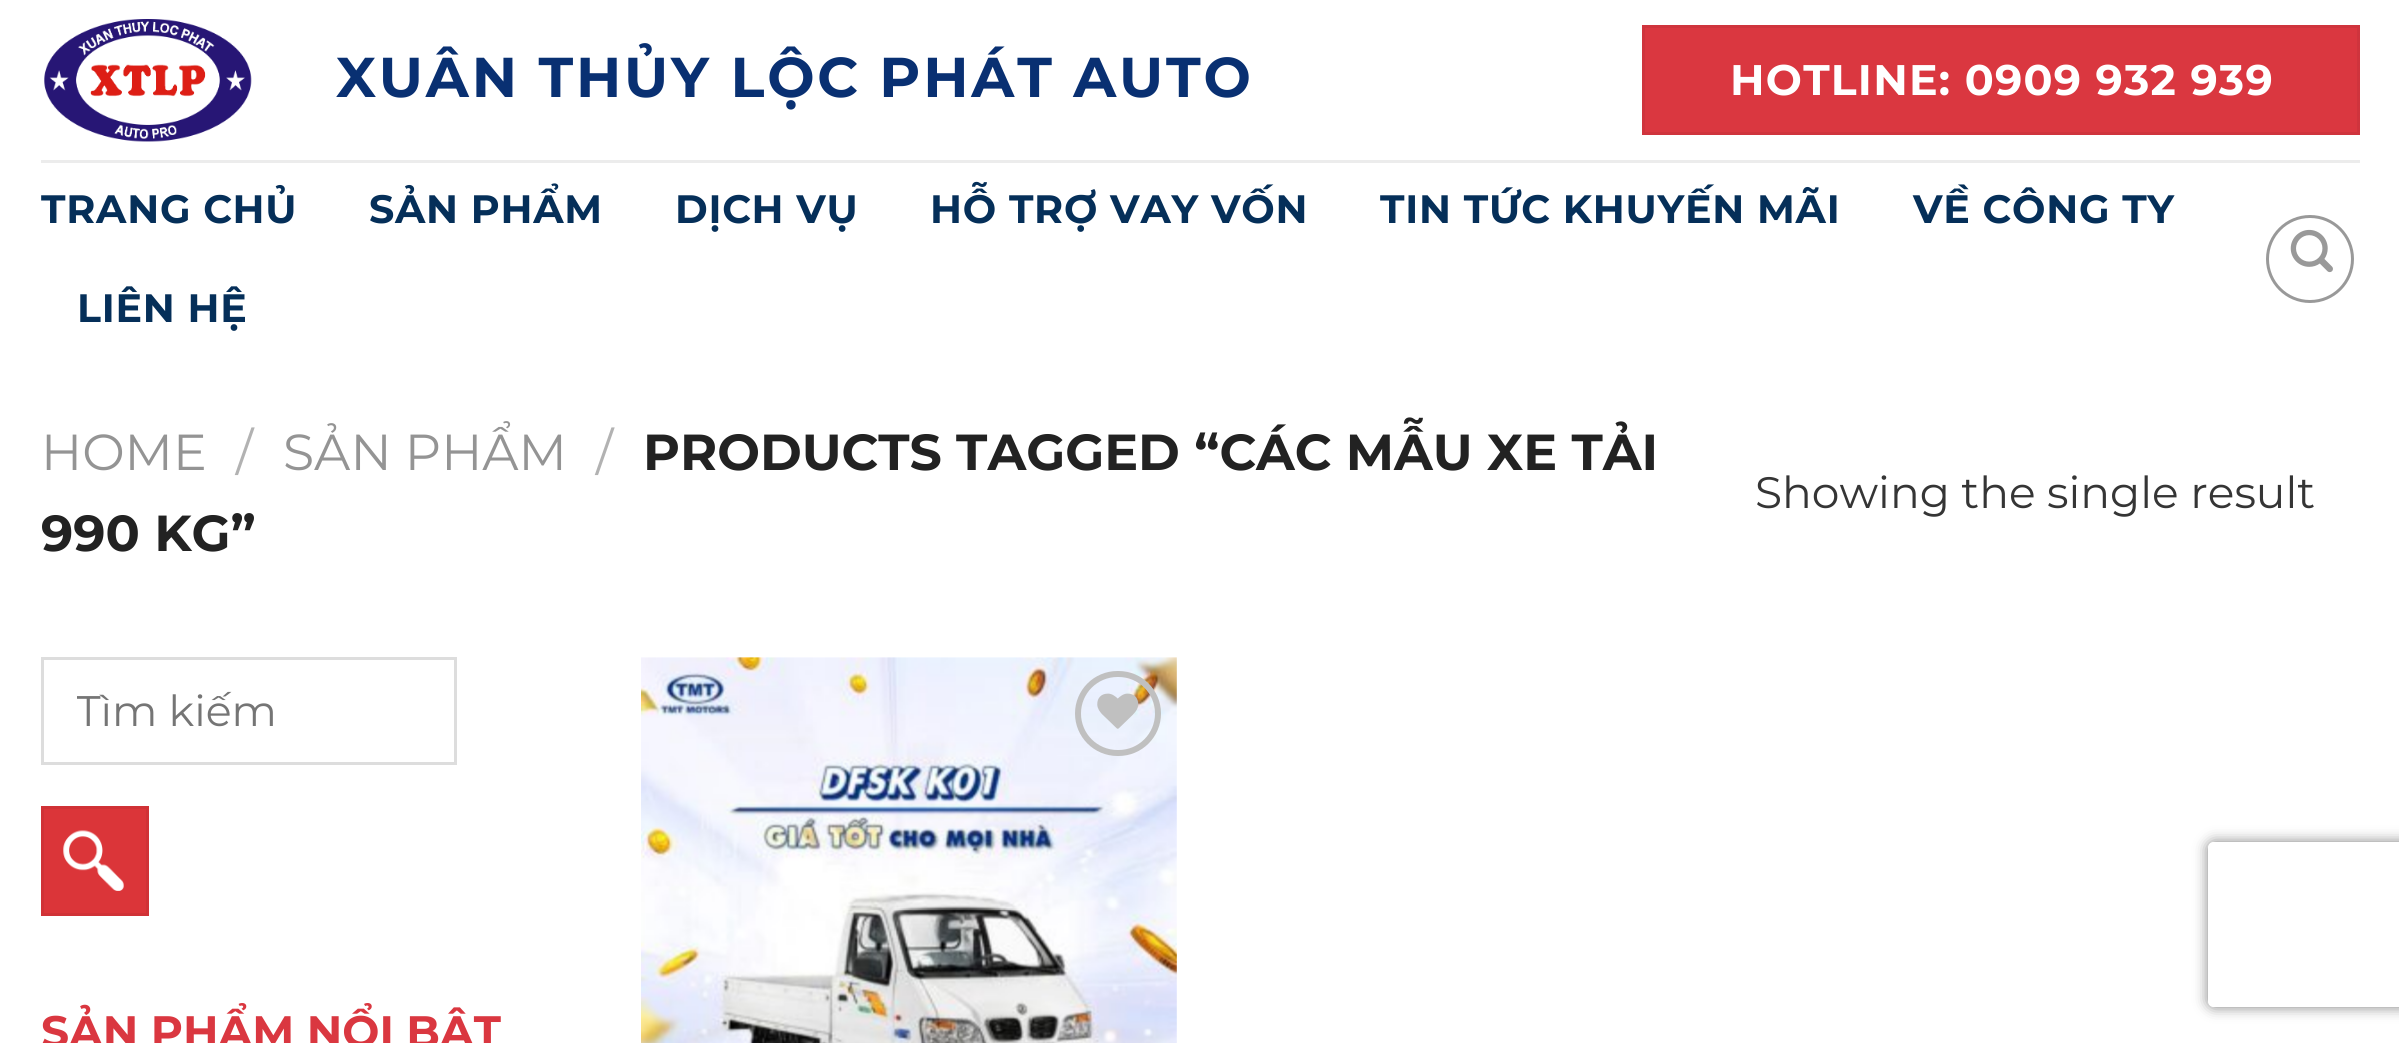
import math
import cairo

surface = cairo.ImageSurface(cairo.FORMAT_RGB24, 2399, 1043)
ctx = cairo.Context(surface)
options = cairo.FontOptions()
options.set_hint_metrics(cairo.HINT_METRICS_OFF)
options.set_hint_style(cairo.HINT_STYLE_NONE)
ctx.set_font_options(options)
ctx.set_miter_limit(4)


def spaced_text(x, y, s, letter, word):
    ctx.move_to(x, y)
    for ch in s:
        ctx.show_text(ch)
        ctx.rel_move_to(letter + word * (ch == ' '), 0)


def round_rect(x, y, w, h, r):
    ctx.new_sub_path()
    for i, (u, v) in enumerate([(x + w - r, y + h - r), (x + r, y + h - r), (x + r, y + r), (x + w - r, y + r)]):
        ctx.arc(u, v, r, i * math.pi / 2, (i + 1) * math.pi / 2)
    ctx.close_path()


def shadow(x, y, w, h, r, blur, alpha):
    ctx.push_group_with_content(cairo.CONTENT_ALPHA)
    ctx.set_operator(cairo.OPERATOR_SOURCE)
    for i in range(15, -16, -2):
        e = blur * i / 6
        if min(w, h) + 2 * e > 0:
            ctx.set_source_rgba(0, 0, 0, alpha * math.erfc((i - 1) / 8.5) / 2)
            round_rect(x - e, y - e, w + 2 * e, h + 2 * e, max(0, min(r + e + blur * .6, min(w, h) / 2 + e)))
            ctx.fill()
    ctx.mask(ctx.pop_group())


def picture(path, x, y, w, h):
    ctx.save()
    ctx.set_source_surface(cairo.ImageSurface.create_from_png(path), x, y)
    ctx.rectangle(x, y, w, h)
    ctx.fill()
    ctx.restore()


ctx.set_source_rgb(1, 1, 1)
ctx.paint()
picture("img1.png", 44, 19, 208, 123)
ctx.select_font_face("Montserrat", cairo.FONT_SLANT_NORMAL, cairo.FONT_WEIGHT_BOLD)
ctx.set_font_size(56.1)
ctx.set_source_rgb(0.039, 0.188, 0.447)
spaced_text(336, 97, "XUÂN THỦY LỘC PHÁT AUTO", 2.8, 0)
ctx.set_source_rgb(0.855, 0.216, 0.251)
ctx.rectangle(1643.5, 26.5, 715, 107)
ctx.fill_preserve()
ctx.set_source_rgb(0.812, 0.204, 0.239)
ctx.set_line_width(3)
ctx.stroke()
ctx.set_font_size(42.75)
ctx.set_source_rgb(1, 1, 1)
spaced_text(1730, 95, "HOTLINE: 0909 932 939", 1.25, 0)
ctx.set_source_rgb(0.922, 0.922, 0.922)
ctx.rectangle(41, 160, 2319, 3)
ctx.fill()
ctx.set_font_size(39.6)
ctx.set_source_rgb(0.02, 0.184, 0.349)
spaced_text(41, 223, "TRANG CHỦ", 0.75, 0)
spaced_text(369, 223, "SẢN PHẨM", 0.75, 0)
spaced_text(675, 223, "DỊCH VỤ", 0.75, 0)
spaced_text(930, 223, "HỖ TRỢ VAY VỐN", 0.75, 0)
spaced_text(1380, 223, "TIN TỨC KHUYẾN MÃI", 0.75, 0)
spaced_text(1913, 223, "VỀ CÔNG TY", 0.75, 0)
spaced_text(77, 322, "LIÊN HỆ", 0.75, 0)
ctx.new_path()
ctx.arc(2310, 259, 42.5, 0, 2 * math.pi)
ctx.set_source_rgb(0.6, 0.6, 0.6)
ctx.stroke()
picture("img2.png", 2290, 229, 43, 44)
ctx.select_font_face("Montserrat")
ctx.set_font_size(50.6)
ctx.set_source_rgb(0.58, 0.58, 0.58)
ctx.move_to(41, 470)
ctx.show_text("HOME")
ctx.set_source_rgb(0.698, 0.698, 0.698)
ctx.move_to(236, 470)
ctx.show_text("/")
ctx.set_source_rgb(0.58, 0.58, 0.58)
ctx.move_to(283, 470)
ctx.show_text("SẢN PHẨM")
ctx.set_source_rgb(0.698, 0.698, 0.698)
ctx.move_to(596, 470)
ctx.show_text("/")
ctx.select_font_face("Montserrat", cairo.FONT_SLANT_NORMAL, cairo.FONT_WEIGHT_BOLD)
ctx.set_source_rgb(0.133, 0.133, 0.133)
ctx.move_to(643, 470)
ctx.show_text("PRODUCTS TAGGED “CÁC MẪU XE TẢI")
ctx.move_to(41, 551)
ctx.show_text("990 KG”")
ctx.select_font_face("Montserrat")
ctx.set_font_size(44)
ctx.set_source_rgb(0.208, 0.208, 0.208)
ctx.move_to(1755, 508)
ctx.show_text("Showing the single result")
ctx.rectangle(42.5, 658.5, 413, 105)
ctx.set_source_rgb(0.867, 0.867, 0.867)
ctx.stroke()
ctx.save()
ctx.rectangle(77, 685, 333, 52)
ctx.clip()
ctx.set_font_size(42.75)
ctx.set_source_rgb(0.459, 0.459, 0.459)
ctx.move_to(76, 726)
ctx.show_text("Tìm kiếm")
ctx.restore()
ctx.set_source_rgb(0.859, 0.208, 0.224)
ctx.rectangle(44, 809, 102, 104)
ctx.fill()
picture("img3.png", 63, 830, 61, 61)
ctx.rectangle(42.5, 807.5, 105, 107)
ctx.set_source_rgb(0.816, 0.196, 0.212)
ctx.stroke()
ctx.select_font_face("Montserrat", cairo.FONT_SLANT_NORMAL, cairo.FONT_WEIGHT_BOLD)
ctx.set_source_rgb(0.855, 0.216, 0.251)
ctx.move_to(41, 1047)
ctx.show_text("SẢN PHẨM NỔI BẬT")
picture("img4.png", 641, 657, 536, 386)
round_rect(1078, 674, 80, 79, 39.5)
ctx.set_source_rgb(0.753, 0.753, 0.753)
ctx.set_line_width(6)
ctx.stroke()
picture("img5.png", 1097, 693, 42, 36)
ctx.save()
ctx.set_fill_rule(cairo.FILL_RULE_EVEN_ODD)
ctx.new_path()
ctx.move_to(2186, 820)
ctx.line_to(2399, 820)
ctx.line_to(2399, 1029)
ctx.line_to(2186, 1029)
ctx.close_path()
ctx.move_to(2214, 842)
ctx.line_to(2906, 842)
ctx.curve_to(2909.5, 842, 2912, 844.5, 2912, 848)
ctx.line_to(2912, 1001)
ctx.curve_to(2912, 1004.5, 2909.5, 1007, 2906, 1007)
ctx.line_to(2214, 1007)
ctx.curve_to(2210.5, 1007, 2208, 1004.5, 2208, 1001)
ctx.line_to(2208, 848)
ctx.curve_to(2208, 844.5, 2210.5, 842, 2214, 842)
ctx.close_path()
ctx.clip()
ctx.set_source_rgb(0.502, 0.502, 0.502)
shadow(2208, 842, 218, 165, 6, 7, 1)
ctx.restore()
surface.write_to_png("page.png")
